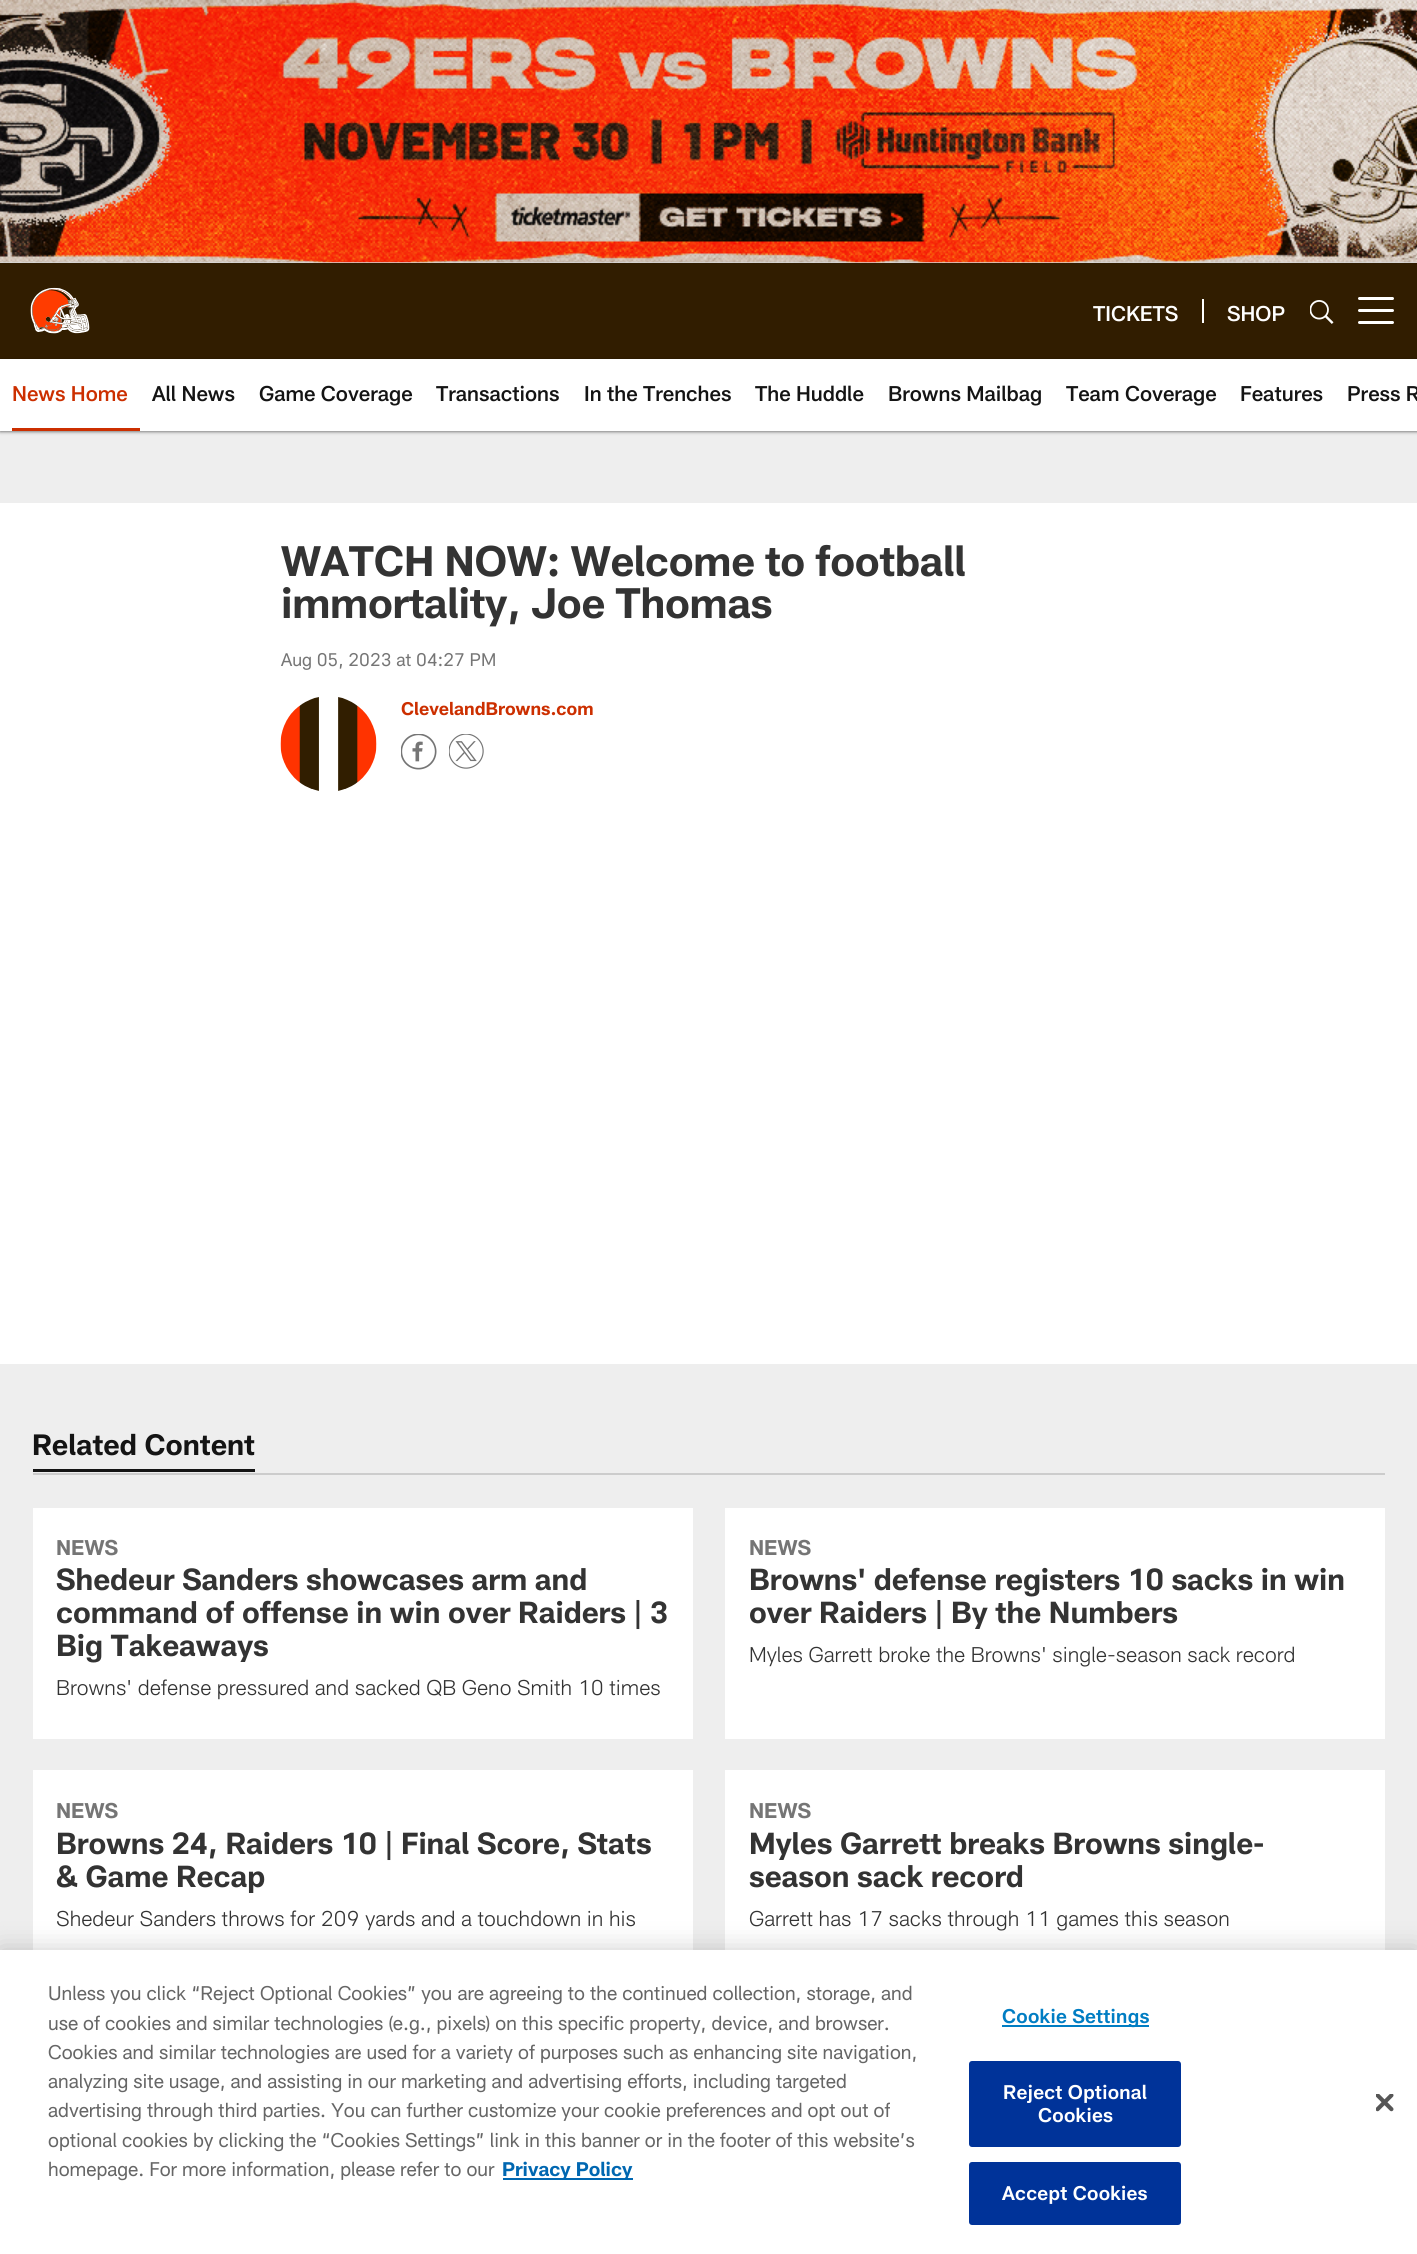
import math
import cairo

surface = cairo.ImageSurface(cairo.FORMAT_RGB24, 1417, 2254)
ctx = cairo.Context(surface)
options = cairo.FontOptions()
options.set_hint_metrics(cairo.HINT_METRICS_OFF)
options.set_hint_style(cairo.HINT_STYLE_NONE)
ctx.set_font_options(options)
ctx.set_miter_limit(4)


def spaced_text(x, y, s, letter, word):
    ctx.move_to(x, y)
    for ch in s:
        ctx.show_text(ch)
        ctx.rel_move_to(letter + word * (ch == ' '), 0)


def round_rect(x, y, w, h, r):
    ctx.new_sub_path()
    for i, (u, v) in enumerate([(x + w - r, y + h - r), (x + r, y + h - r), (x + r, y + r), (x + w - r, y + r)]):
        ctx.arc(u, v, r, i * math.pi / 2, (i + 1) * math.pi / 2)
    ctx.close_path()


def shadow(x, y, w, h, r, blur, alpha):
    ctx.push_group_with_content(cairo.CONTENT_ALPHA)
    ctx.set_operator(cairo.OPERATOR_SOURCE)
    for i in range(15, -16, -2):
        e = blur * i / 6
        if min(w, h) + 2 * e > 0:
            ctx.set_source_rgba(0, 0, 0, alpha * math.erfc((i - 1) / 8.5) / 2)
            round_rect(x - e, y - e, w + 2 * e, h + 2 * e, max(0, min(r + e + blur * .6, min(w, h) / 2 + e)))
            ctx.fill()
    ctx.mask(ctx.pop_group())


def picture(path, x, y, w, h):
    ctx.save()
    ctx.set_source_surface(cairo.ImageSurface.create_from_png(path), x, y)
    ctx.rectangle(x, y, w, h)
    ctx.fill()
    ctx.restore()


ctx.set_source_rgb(0.933, 0.933, 0.933)
ctx.paint()
picture("img1.png", 0, 0, 1417, 263)
ctx.set_source_rgb(0, 0, 0)
shadow(0, 264, 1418, 96, 0, 1.5, 0.47)
ctx.set_source_rgb(0.192, 0.114, 0)
ctx.rectangle(0, 263, 1417, 96)
ctx.fill()
picture("img2.png", 30, 287, 60, 47)
ctx.select_font_face("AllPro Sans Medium")
ctx.set_font_size(21)
ctx.set_source_rgb(1, 1, 1)
ctx.move_to(1093, 321)
ctx.show_text("TICKETS")
ctx.rectangle(1202, 299, 2, 24)
ctx.fill()
ctx.move_to(1227, 321)
ctx.show_text("SHOP")
picture("img3.png", 1310, 300, 24, 24)
round_rect(1358, 309, 36, 3, 1.5)
ctx.fill()
round_rect(1358, 297, 36, 3, 1.5)
ctx.fill()
round_rect(1358, 321, 36, 3, 1.5)
ctx.fill()
ctx.set_source_rgb(0, 0, 0)
shadow(0, 360, 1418, 72, 0, 1.5, 0.47)
ctx.set_source_rgb(1, 1, 1)
ctx.rectangle(0, 359, 1417, 72)
ctx.fill()
ctx.set_source_rgb(0.8, 0.184, 0)
ctx.rectangle(12, 428, 128, 3)
ctx.fill()
ctx.move_to(12, 401)
ctx.show_text("News Home")
ctx.set_source_rgb(0.082, 0.082, 0.082)
ctx.move_to(152, 401)
ctx.show_text("All News")
ctx.move_to(259, 401)
ctx.show_text("Game Coverage")
ctx.move_to(436, 401)
ctx.show_text("Transactions")
ctx.move_to(584, 401)
ctx.show_text("In the Trenches")
ctx.move_to(755, 401)
ctx.show_text("The Huddle")
ctx.move_to(888, 401)
ctx.show_text("Browns Mailbag")
ctx.move_to(1066, 401)
ctx.show_text("Team Coverage")
ctx.move_to(1240, 401)
ctx.show_text("Features")
ctx.move_to(1347, 401)
ctx.show_text("Press R")
ctx.set_source_rgb(1, 1, 1)
ctx.rectangle(0, 503, 1417, 861)
ctx.fill()
ctx.select_font_face("AllPro Sans", cairo.FONT_SLANT_NORMAL, cairo.FONT_WEIGHT_BOLD)
ctx.set_font_size(42)
ctx.set_source_rgb(0.2, 0.2, 0.2)
spaced_text(281, 576, "WATCH NOW: Welcome to football", -0.3, 0)
spaced_text(281, 618, "immortality, Joe Thomas", -0.3, 0)
ctx.select_font_face("AllPro Sans")
ctx.set_font_size(18)
ctx.set_source_rgb(0.459, 0.459, 0.459)
ctx.move_to(281, 666)
ctx.show_text("Aug 05, 2023 at 04:27 PM")
picture("img4.png", 280, 697, 97, 94)
ctx.select_font_face("AllPro Sans", cairo.FONT_SLANT_NORMAL, cairo.FONT_WEIGHT_BOLD)
ctx.set_source_rgb(0.8, 0.184, 0)
ctx.move_to(401, 715)
ctx.show_text("ClevelandBrowns.com")
picture("img5.png", 401, 734, 36, 36)
picture("img6.png", 449, 734, 35, 35)
ctx.set_source_rgb(0.8, 0.8, 0.8)
ctx.rectangle(33, 1473, 1352, 2)
ctx.fill()
ctx.set_source_rgb(0.082, 0.082, 0.082)
ctx.rectangle(33, 1469, 222, 3)
ctx.fill()
ctx.set_font_size(29)
ctx.move_to(32, 1455)
ctx.show_text("Related Content")
ctx.set_source_rgb(1, 1, 1)
ctx.rectangle(33, 1508, 660, 231)
ctx.fill()
ctx.set_font_size(21)
ctx.set_source_rgb(0.459, 0.459, 0.459)
ctx.move_to(56, 1555)
ctx.show_text("NEWS")
ctx.set_font_size(30)
ctx.set_source_rgb(0.2, 0.2, 0.2)
ctx.move_to(56, 1590)
ctx.show_text("Shedeur Sanders showcases arm and")
ctx.move_to(56, 1623)
ctx.show_text("command of offense in win over Raiders | 3")
ctx.move_to(56, 1656)
ctx.show_text("Big Takeaways")
ctx.select_font_face("AllPro Sans Light")
ctx.set_font_size(21)
ctx.move_to(56, 1695)
ctx.show_text("Browns' defense pressured and sacked QB Geno Smith 10 times")
ctx.set_source_rgb(1, 1, 1)
ctx.rectangle(725, 1508, 660, 231)
ctx.fill()
ctx.select_font_face("AllPro Sans", cairo.FONT_SLANT_NORMAL, cairo.FONT_WEIGHT_BOLD)
ctx.set_source_rgb(0.459, 0.459, 0.459)
ctx.move_to(749, 1555)
ctx.show_text("NEWS")
ctx.set_font_size(30)
ctx.set_source_rgb(0.2, 0.2, 0.2)
ctx.move_to(749, 1590)
ctx.show_text("Browns' defense registers 10 sacks in win")
ctx.move_to(749, 1623)
ctx.show_text("over Raiders | By the Numbers")
ctx.select_font_face("AllPro Sans Light")
ctx.set_font_size(21)
ctx.move_to(749, 1662)
ctx.show_text("Myles Garrett broke the Browns' single-season sack record")
ctx.set_source_rgb(1, 1, 1)
ctx.rectangle(33, 1770, 660, 180)
ctx.fill()
ctx.select_font_face("AllPro Sans", cairo.FONT_SLANT_NORMAL, cairo.FONT_WEIGHT_BOLD)
ctx.set_source_rgb(0.459, 0.459, 0.459)
ctx.move_to(56, 1818)
ctx.show_text("NEWS")
ctx.set_font_size(30)
ctx.set_source_rgb(0.2, 0.2, 0.2)
ctx.move_to(56, 1854)
ctx.show_text("Browns 24, Raiders 10 | Final Score, Stats")
ctx.move_to(56, 1887)
ctx.show_text("& Game Recap")
ctx.select_font_face("AllPro Sans Light")
ctx.set_font_size(21)
ctx.move_to(56, 1926)
ctx.show_text("Shedeur Sanders throws for 209 yards and a touchdown in his")
ctx.set_source_rgb(1, 1, 1)
ctx.rectangle(725, 1770, 660, 180)
ctx.fill()
ctx.select_font_face("AllPro Sans", cairo.FONT_SLANT_NORMAL, cairo.FONT_WEIGHT_BOLD)
ctx.set_source_rgb(0.459, 0.459, 0.459)
ctx.move_to(749, 1818)
ctx.show_text("NEWS")
ctx.set_font_size(30)
ctx.set_source_rgb(0.2, 0.2, 0.2)
ctx.move_to(749, 1854)
ctx.show_text("Myles Garrett breaks Browns single-")
ctx.move_to(749, 1887)
ctx.show_text("season sack record")
ctx.select_font_face("AllPro Sans Light")
ctx.set_font_size(21)
ctx.move_to(749, 1926)
ctx.show_text("Garrett has 17 sacks through 11 games this season")
ctx.set_source_rgb(0, 0, 0)
shadow(0, 1950, 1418, 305, 0, 13.5, 0.2)
ctx.set_source_rgb(1, 1, 1)
ctx.rectangle(0, 1950, 1417, 304)
ctx.fill()
ctx.select_font_face("AllPro Sans")
ctx.set_font_size(19.5)
ctx.set_source_rgb(0.4, 0.4, 0.4)
ctx.move_to(48, 2000)
ctx.show_text("Unless you click “Reject Optional Cookies” you are agreeing to the continued collection, storage, and")
ctx.move_to(48, 2030)
ctx.show_text("use of cookies and similar technologies (e.g., pixels) on this specific property, device, and browser.")
ctx.move_to(48, 2059)
ctx.show_text("Cookies and similar technologies are used for a variety of purposes such as enhancing site navigation,")
ctx.move_to(48, 2088)
ctx.show_text("analyzing site usage, and assisting in our marketing and advertising efforts, including targeted")
ctx.move_to(48, 2117)
ctx.show_text("advertising through third parties. You can further customize your cookie preferences and opt out of")
ctx.move_to(48, 2147)
ctx.show_text("optional cookies by clicking the “Cookies Settings” link in this banner or in the footer of this website’s")
ctx.move_to(48, 2176)
ctx.show_text("homepage. For more information, please refer to our")
ctx.set_source_rgb(0, 0.404, 0.694)
ctx.rectangle(503, 2178, 130, 2)
ctx.fill()
ctx.select_font_face("AllPro Sans", cairo.FONT_SLANT_NORMAL, cairo.FONT_WEIGHT_BOLD)
ctx.move_to(502, 2176)
ctx.show_text("Privacy Policy")
ctx.set_source_rgb(0, 0.49, 0.765)
ctx.rectangle(1002, 2025, 147, 2)
ctx.fill()
ctx.select_font_face("AllPro Sans SemiBold")
spaced_text(1002, 2023, "Cookie Settings", 0.25, 0)
ctx.set_source_rgb(0, 0.2, 0.6)
round_rect(970, 2062, 210, 84, 2)
ctx.fill_preserve()
ctx.stroke()
ctx.set_source_rgb(1, 1, 1)
spaced_text(1003, 2099, "Reject Optional", 0.25, 0)
spaced_text(1038, 2122, "Cookies", 0.25, 0)
ctx.set_source_rgb(0, 0.2, 0.6)
round_rect(970, 2163, 210, 61, 2)
ctx.fill_preserve()
ctx.stroke()
ctx.set_source_rgb(1, 1, 1)
spaced_text(1002, 2200, "Accept Cookies", 0.25, 0)
picture("img7.png", 1376, 2094, 18, 18)
surface.write_to_png("page.png")
